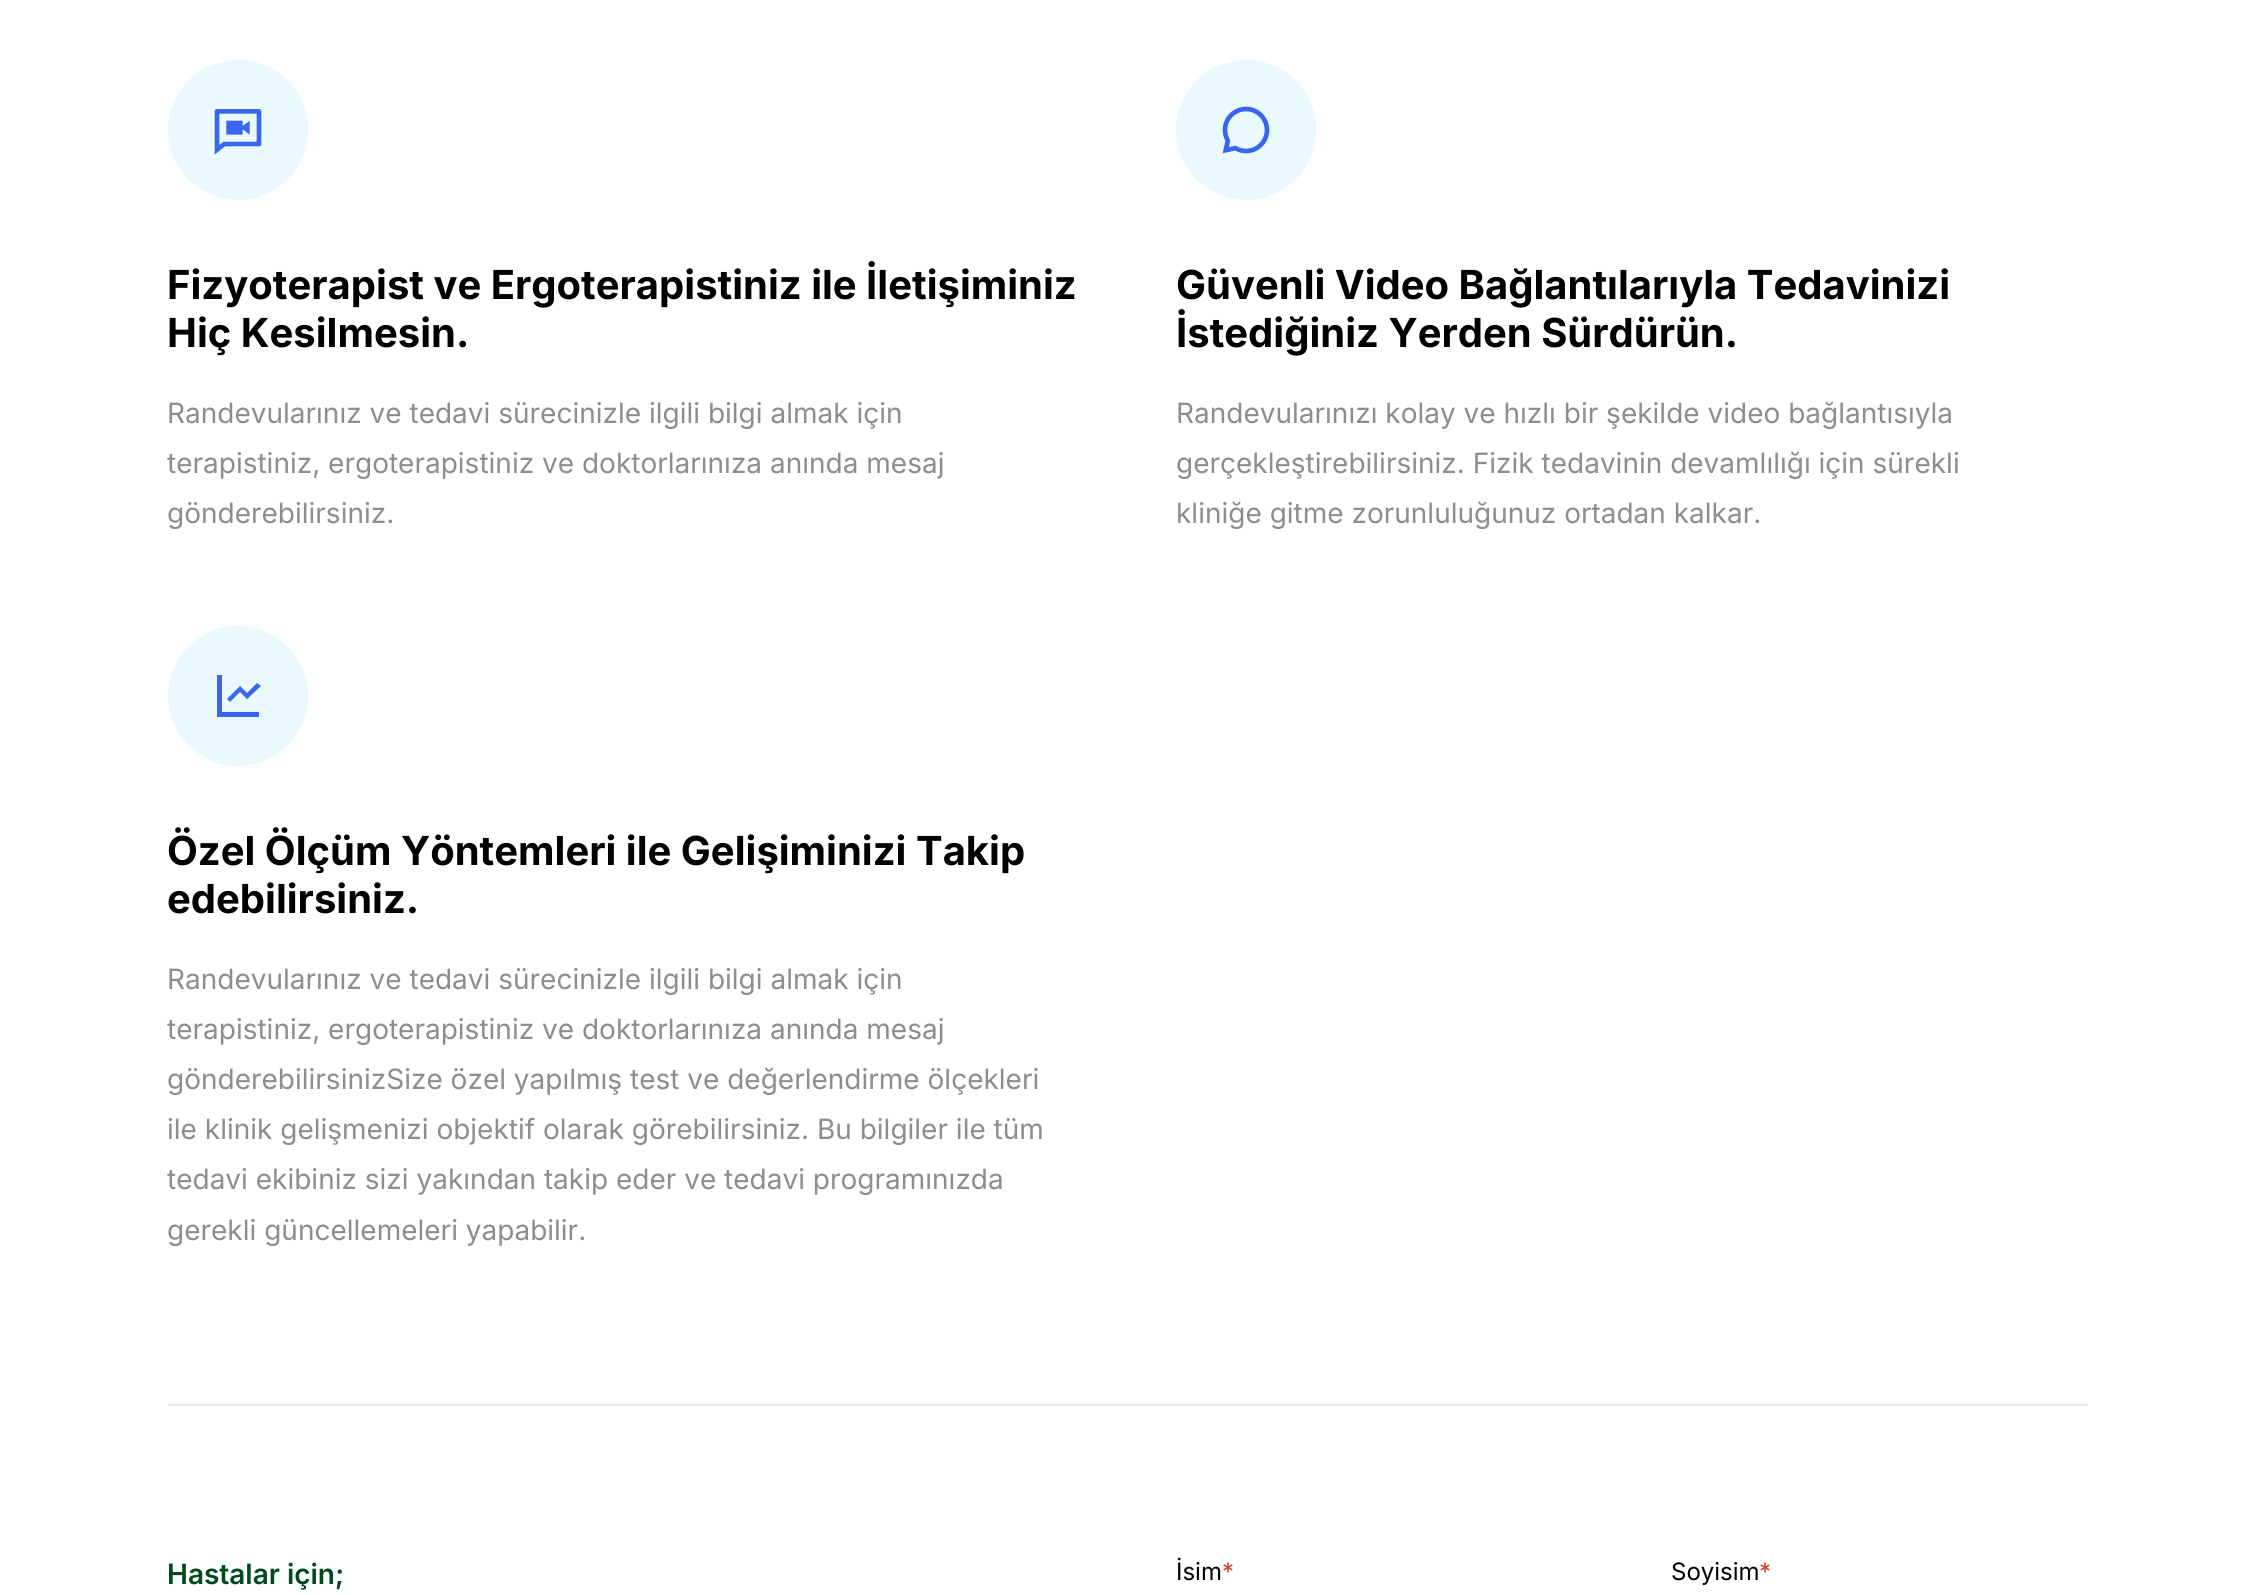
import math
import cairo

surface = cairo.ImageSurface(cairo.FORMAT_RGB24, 2253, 1595)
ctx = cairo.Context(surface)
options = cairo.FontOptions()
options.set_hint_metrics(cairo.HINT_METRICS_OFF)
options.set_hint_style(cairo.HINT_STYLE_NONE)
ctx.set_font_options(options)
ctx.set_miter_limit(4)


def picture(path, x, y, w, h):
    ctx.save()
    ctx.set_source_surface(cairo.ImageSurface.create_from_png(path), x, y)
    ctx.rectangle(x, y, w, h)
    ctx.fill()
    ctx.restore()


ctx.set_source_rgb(1, 1, 1)
ctx.paint()
ctx.set_source_rgb(0.918, 0.918, 0.918)
ctx.rectangle(168, 1404, 1920, 2)
ctx.fill()
ctx.set_source_rgb(0.914, 0.973, 0.992)
ctx.arc(238, 130, 70, 0, 2 * math.pi)
ctx.fill()
picture("img1.png", 214, 109, 48, 46)
ctx.select_font_face("Inter", cairo.FONT_SLANT_NORMAL, cairo.FONT_WEIGHT_BOLD)
ctx.set_font_size(40)
ctx.set_source_rgb(0, 0, 0)
ctx.move_to(167, 299)
ctx.show_text("Fizyoterapist ve Ergoterapistiniz ile İletişiminiz")
ctx.move_to(167, 347)
ctx.show_text("Hiç Kesilmesin.")
ctx.select_font_face("Inter")
ctx.set_font_size(28)
ctx.set_source_rgb(0.553, 0.553, 0.553)
ctx.move_to(167, 423)
ctx.show_text("Randevularınız ve tedavi sürecinizle ilgili bilgi almak için")
ctx.move_to(167, 473)
ctx.show_text("terapistiniz, ergoterapistiniz ve doktorlarınıza anında mesaj")
ctx.move_to(167, 523)
ctx.show_text("gönderebilirsiniz.")
ctx.set_source_rgb(0.914, 0.973, 0.992)
ctx.new_path()
ctx.arc(1246, 130, 70, 0, 2 * math.pi)
ctx.fill()
picture("img2.png", 1222, 106, 48, 48)
ctx.select_font_face("Inter", cairo.FONT_SLANT_NORMAL, cairo.FONT_WEIGHT_BOLD)
ctx.set_font_size(40)
ctx.set_source_rgb(0, 0, 0)
ctx.move_to(1176, 299)
ctx.show_text("Güvenli Video Bağlantılarıyla Tedavinizi")
ctx.move_to(1176, 347)
ctx.show_text("İstediğiniz Yerden Sürdürün.")
ctx.select_font_face("Inter")
ctx.set_font_size(28)
ctx.set_source_rgb(0.553, 0.553, 0.553)
ctx.move_to(1176, 423)
ctx.show_text("Randevularınızı kolay ve hızlı bir şekilde video bağlantısıyla")
ctx.move_to(1176, 473)
ctx.show_text("gerçekleştirebilirsiniz. Fizik tedavinin devamlılığı için sürekli")
ctx.move_to(1176, 523)
ctx.show_text("kliniğe gitme zorunluluğunuz ortadan kalkar.")
ctx.set_source_rgb(0.914, 0.973, 0.992)
ctx.new_path()
ctx.arc(238, 696, 70, 0, 2 * math.pi)
ctx.fill()
ctx.set_source_rgb(0.224, 0.4, 0.925)
ctx.new_path()
ctx.move_to(222, 675)
ctx.line_to(222, 712)
ctx.line_to(259, 712)
ctx.line_to(259, 717)
ctx.line_to(217, 717)
ctx.line_to(217, 675)
ctx.close_path()
ctx.move_to(257, 683)
ctx.line_to(261, 686)
ctx.line_to(247, 699)
ctx.line_to(240, 692)
ctx.line_to(230, 702)
ctx.line_to(227, 699)
ctx.line_to(240, 686)
ctx.line_to(247, 693)
ctx.close_path()
ctx.fill()
ctx.select_font_face("Inter", cairo.FONT_SLANT_NORMAL, cairo.FONT_WEIGHT_BOLD)
ctx.set_font_size(40)
ctx.set_source_rgb(0, 0, 0)
ctx.move_to(167, 865)
ctx.show_text("Özel Ölçüm Yöntemleri ile Gelişiminizi Takip")
ctx.move_to(167, 913)
ctx.show_text("edebilirsiniz.")
ctx.select_font_face("Inter")
ctx.set_font_size(28)
ctx.set_source_rgb(0.553, 0.553, 0.553)
ctx.move_to(167, 989)
ctx.show_text("Randevularınız ve tedavi sürecinizle ilgili bilgi almak için")
ctx.move_to(167, 1039)
ctx.show_text("terapistiniz, ergoterapistiniz ve doktorlarınıza anında mesaj")
ctx.move_to(167, 1089)
ctx.show_text("gönderebilirsinizSize özel yapılmış test ve değerlendirme ölçekleri")
ctx.move_to(167, 1139)
ctx.show_text("ile klinik gelişmenizi objektif olarak görebilirsiniz. Bu bilgiler ile tüm")
ctx.move_to(167, 1189)
ctx.show_text("tedavi ekibiniz sizi yakından takip eder ve tedavi programınızda")
ctx.move_to(167, 1240)
ctx.show_text("gerekli güncellemeleri yapabilir.")
ctx.select_font_face("Inter SemiBold")
ctx.set_source_rgb(0, 0.286, 0.122)
ctx.move_to(167, 1584)
ctx.show_text("Hastalar için;")
ctx.select_font_face("Inter")
ctx.set_font_size(24)
ctx.set_source_rgb(0, 0, 0)
ctx.move_to(1176, 1580)
ctx.show_text("İsim")
ctx.set_source_rgb(0.808, 0.243, 0.157)
ctx.move_to(1222, 1580)
ctx.show_text("*")
ctx.set_source_rgb(0, 0, 0)
ctx.move_to(1671, 1580)
ctx.show_text("Soyisim")
ctx.set_source_rgb(0.808, 0.243, 0.157)
ctx.move_to(1759, 1580)
ctx.show_text("*")
surface.write_to_png("page.png")
